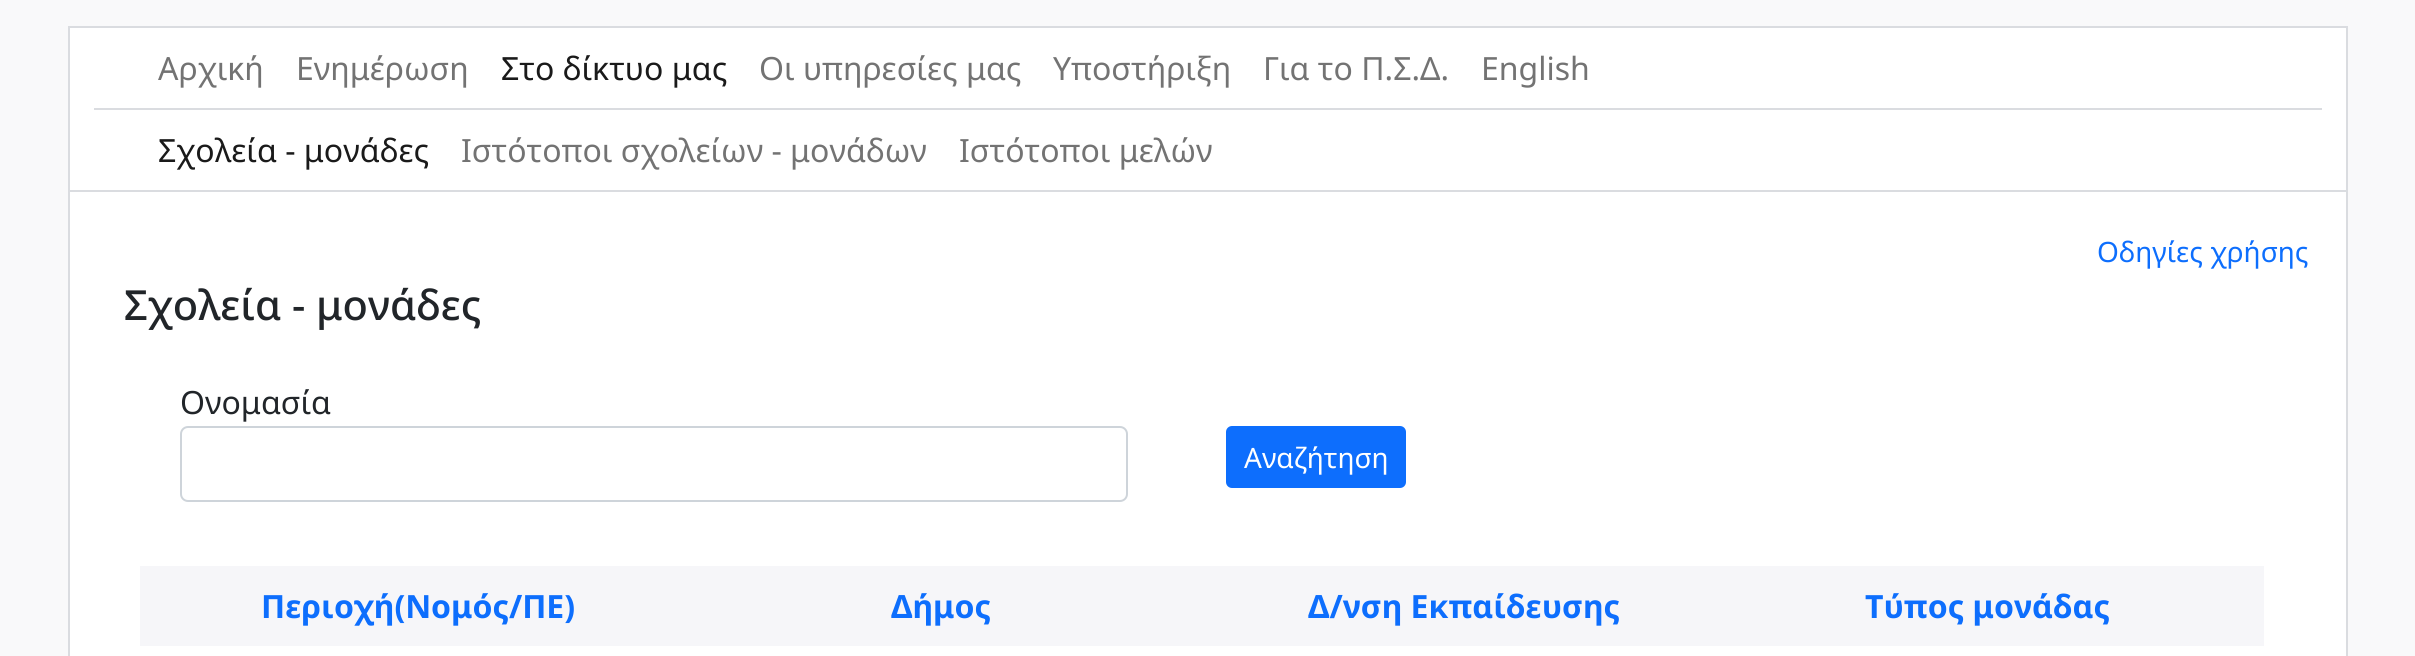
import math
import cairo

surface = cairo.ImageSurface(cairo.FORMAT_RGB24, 2415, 656)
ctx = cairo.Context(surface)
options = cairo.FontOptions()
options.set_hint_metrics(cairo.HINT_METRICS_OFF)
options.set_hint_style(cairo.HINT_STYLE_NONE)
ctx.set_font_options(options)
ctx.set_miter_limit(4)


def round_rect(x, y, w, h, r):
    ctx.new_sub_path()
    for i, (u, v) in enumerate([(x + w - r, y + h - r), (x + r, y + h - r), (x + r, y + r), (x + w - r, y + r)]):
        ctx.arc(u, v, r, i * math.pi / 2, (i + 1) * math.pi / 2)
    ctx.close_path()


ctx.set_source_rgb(0.973, 0.976, 0.98)
ctx.paint()
ctx.set_source_rgb(1, 1, 1)
ctx.rectangle(70, 28, 2276, 162)
ctx.fill()
ctx.set_source_rgb(0.855, 0.863, 0.878)
ctx.rectangle(68, 26, 2280, 2)
ctx.fill()
ctx.rectangle(2346, 26, 2, 164)
ctx.fill()
ctx.rectangle(68, 26, 2, 164)
ctx.fill()
ctx.rectangle(94, 108, 2228, 2)
ctx.fill()
ctx.select_font_face("Noto Sans")
ctx.set_font_size(32)
ctx.set_source_rgb(0.451, 0.451, 0.451)
ctx.move_to(158, 80)
ctx.show_text("Αρχική")
ctx.move_to(296, 80)
ctx.show_text("Ενημέρωση")
ctx.set_source_rgb(0.102, 0.102, 0.102)
ctx.move_to(501, 80)
ctx.show_text("Στο δίκτυο μας")
ctx.set_source_rgb(0.451, 0.451, 0.451)
ctx.move_to(759, 80)
ctx.show_text("Οι υπηρεσίες μας")
ctx.move_to(1053, 80)
ctx.show_text("Υποστήριξη")
ctx.move_to(1263, 80)
ctx.show_text("Για το Π.Σ.Δ.")
ctx.move_to(1481, 80)
ctx.show_text("English")
ctx.set_source_rgb(0.102, 0.102, 0.102)
ctx.move_to(158, 162)
ctx.show_text("Σχολεία - μονάδες")
ctx.set_source_rgb(0.451, 0.451, 0.451)
ctx.move_to(461, 162)
ctx.show_text("Ιστότοποι σχολείων - μονάδων")
ctx.move_to(959, 162)
ctx.show_text("Ιστότοποι μελών")
ctx.set_source_rgb(1, 1, 1)
ctx.rectangle(69, 191, 2278, 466)
ctx.fill_preserve()
ctx.set_source_rgb(0.855, 0.863, 0.878)
ctx.stroke()
ctx.set_font_size(28)
ctx.set_source_rgb(0.051, 0.431, 0.992)
ctx.move_to(2097, 262)
ctx.show_text("Οδηγίες χρήσης")
ctx.select_font_face("Noto Sans Medium")
ctx.set_font_size(41.5)
ctx.set_source_rgb(0.129, 0.145, 0.161)
ctx.move_to(124, 320)
ctx.show_text("Σχολεία - μονάδες")
ctx.select_font_face("Noto Sans")
ctx.set_font_size(32)
ctx.move_to(180, 414)
ctx.show_text("Ονομασία")
round_rect(181, 427, 946, 74, 7)
ctx.set_source_rgb(0.808, 0.831, 0.855)
ctx.stroke()
ctx.set_source_rgb(0.051, 0.431, 0.992)
round_rect(1227, 427, 178, 60, 5)
ctx.fill_preserve()
ctx.stroke()
ctx.set_font_size(28)
ctx.set_source_rgb(1, 1, 1)
ctx.move_to(1244, 468)
ctx.show_text("Αναζήτηση")
ctx.set_source_rgb(0.961, 0.961, 0.973)
ctx.rectangle(140, 566, 2124, 80)
ctx.fill()
ctx.select_font_face("Noto Sans", cairo.FONT_SLANT_NORMAL, cairo.FONT_WEIGHT_BOLD)
ctx.set_font_size(32)
ctx.set_source_rgb(0.051, 0.431, 0.992)
ctx.move_to(261, 618)
ctx.show_text("Περιοχή(Νομός/ΠΕ)")
ctx.move_to(891, 618)
ctx.show_text("Δήμος")
ctx.move_to(1308, 618)
ctx.show_text("Δ/νση Εκπαίδευσης")
ctx.move_to(1865, 618)
ctx.show_text("Τύπος μονάδας")
surface.write_to_png("page.png")
